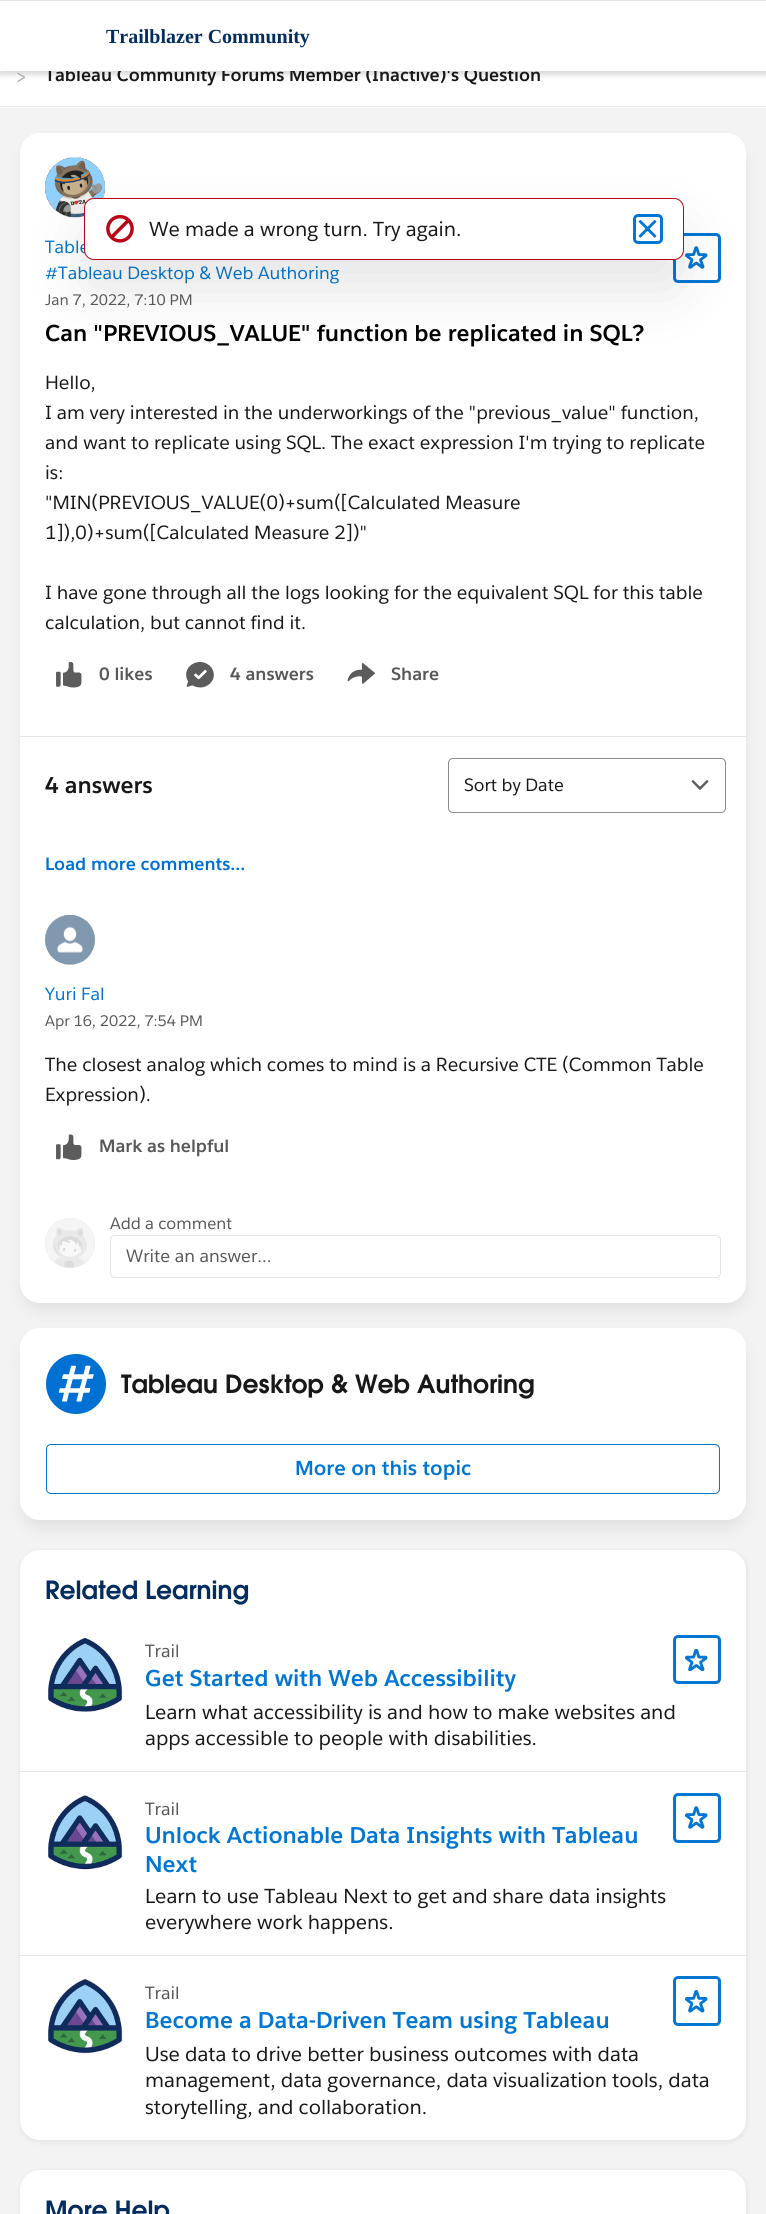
import math
import cairo

surface = cairo.ImageSurface(cairo.FORMAT_RGB24, 766, 2214)
ctx = cairo.Context(surface)
options = cairo.FontOptions()
options.set_hint_metrics(cairo.HINT_METRICS_OFF)
options.set_hint_style(cairo.HINT_STYLE_NONE)
ctx.set_font_options(options)
ctx.set_miter_limit(4)


def round_rect(x, y, w, h, r):
    ctx.new_sub_path()
    for i, (u, v) in enumerate([(x + w - r, y + h - r), (x + r, y + h - r), (x + r, y + r), (x + w - r, y + r)]):
        ctx.arc(u, v, r, i * math.pi / 2, (i + 1) * math.pi / 2)
    ctx.close_path()


def shadow(x, y, w, h, r, blur, alpha):
    ctx.push_group_with_content(cairo.CONTENT_ALPHA)
    ctx.set_operator(cairo.OPERATOR_SOURCE)
    for i in range(15, -16, -2):
        e = blur * i / 6
        if min(w, h) + 2 * e > 0:
            ctx.set_source_rgba(0, 0, 0, alpha * math.erfc((i - 1) / 8.5) / 2)
            round_rect(x - e, y - e, w + 2 * e, h + 2 * e, max(0, min(r + e + blur * .6, min(w, h) / 2 + e)))
            ctx.fill()
    ctx.mask(ctx.pop_group())


def picture(path, x, y, w, h):
    ctx.save()
    ctx.set_source_surface(cairo.ImageSurface.create_from_png(path), x, y)
    ctx.rectangle(x, y, w, h)
    ctx.fill()
    ctx.restore()


ctx.set_source_rgb(0.953, 0.953, 0.953)
ctx.paint()
ctx.set_source_rgb(1, 1, 1)
ctx.rectangle(0, 71, 766, 37)
ctx.fill()
ctx.set_source_rgb(0.094, 0.094, 0.094)
shadow(-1, 1, 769, 74, 0, 2.5, 0.16)
ctx.select_font_face("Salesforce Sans", cairo.FONT_SLANT_NORMAL, cairo.FONT_WEIGHT_BOLD)
ctx.set_font_size(17.5)
ctx.set_source_rgb(0.094, 0.094, 0.094)
ctx.move_to(45, 81)
ctx.show_text("Tableau Community Forums Member (Inactive)'s Question")
ctx.set_source_rgb(1, 1, 1)
ctx.rectangle(0, 1, 766, 70)
ctx.fill()
ctx.set_source_rgb(0.898, 0.898, 0.898)
ctx.rectangle(0, 0, 1, 1)
ctx.fill()
ctx.select_font_face("Liberation Serif", cairo.FONT_SLANT_NORMAL, cairo.FONT_WEIGHT_BOLD)
ctx.set_font_size(20)
ctx.set_source_rgb(0.012, 0.176, 0.376)
ctx.move_to(106, 43)
ctx.show_text("Trailblazer Community")
ctx.set_source_rgb(0.898, 0.898, 0.898)
ctx.rectangle(0, 106, 766, 1)
ctx.fill()
ctx.select_font_face("Salesforce Sans")
ctx.set_source_rgb(0.682, 0.682, 0.682)
ctx.move_to(15, 83)
ctx.show_text(">")
ctx.set_source_rgb(0.094, 0.094, 0.094)
shadow(23, 145, 721, 1165, 18, 7.5, 0.09)
ctx.set_source_rgb(1, 1, 1)
round_rect(20, 133, 726, 1170, 20)
ctx.fill()
ctx.set_source_rgb(0.898, 0.898, 0.898)
ctx.arc(75, 188, 30, 0, 2 * math.pi)
ctx.fill()
picture("img1.png", 45, 157, 60, 61)
ctx.set_font_size(17.5)
ctx.set_source_rgb(0.004, 0.463, 0.827)
ctx.move_to(45, 253)
ctx.show_text("Table")
ctx.move_to(45, 279)
ctx.show_text("#Tableau Desktop & Web Authoring")
round_rect(674.5, 234.5, 45, 47, 3.5)
ctx.set_line_width(3)
ctx.stroke()
picture("img2.png", 685, 246, 23, 23)
ctx.set_font_size(15)
ctx.set_source_rgb(0.345, 0.345, 0.345)
ctx.move_to(45, 305)
ctx.show_text("Jan 7, 2022, 7:10 PM")
ctx.select_font_face("Salesforce Sans", cairo.FONT_SLANT_NORMAL, cairo.FONT_WEIGHT_BOLD)
ctx.set_font_size(22.5)
ctx.set_source_rgb(0, 0, 0)
ctx.move_to(45, 341)
ctx.show_text("Can \"PREVIOUS_VALUE\" function be replicated in SQL?")
ctx.select_font_face("Salesforce Sans")
ctx.set_font_size(18.75)
ctx.set_source_rgb(0.094, 0.094, 0.094)
ctx.move_to(45, 389)
ctx.show_text("Hello,")
ctx.move_to(45, 419)
ctx.show_text("I am very interested in the underworkings of the \"previous_value\" function,")
ctx.move_to(45, 449)
ctx.show_text("and want to replicate using SQL. The exact expression I'm trying to replicate")
ctx.move_to(45, 479)
ctx.show_text("is:")
ctx.move_to(45, 509)
ctx.show_text("\"MIN(PREVIOUS_VALUE(0)+sum([Calculated Measure")
ctx.move_to(45, 539)
ctx.show_text("1]),0)+sum([Calculated Measure 2])\"")
ctx.move_to(45, 599)
ctx.show_text("I have gone through all the logs looking for the equivalent SQL for this table")
ctx.move_to(45, 629)
ctx.show_text("calculation, but cannot find it.")
picture("img3.png", 56, 662, 26, 26)
ctx.select_font_face("Salesforce Sans", cairo.FONT_SLANT_NORMAL, cairo.FONT_WEIGHT_BOLD)
ctx.set_font_size(17.5)
ctx.set_source_rgb(0.345, 0.345, 0.345)
ctx.move_to(99, 680)
ctx.show_text("0 likes")
picture("img4.png", 186, 662, 28, 26)
ctx.move_to(230, 680)
ctx.show_text("4 answers")
picture("img5.png", 347, 663, 28, 21)
ctx.move_to(391, 680)
ctx.show_text("Share")
ctx.set_source_rgb(0.898, 0.898, 0.898)
ctx.rectangle(20, 736, 726, 1)
ctx.fill()
ctx.set_font_size(22.5)
ctx.set_source_rgb(0.094, 0.094, 0.094)
ctx.move_to(45, 793)
ctx.show_text("4 answers")
round_rect(448.5, 758.5, 277, 54, 4.5)
ctx.set_source_rgb(0.549, 0.549, 0.549)
ctx.set_line_width(1)
ctx.stroke()
ctx.select_font_face("Salesforce Sans")
ctx.set_font_size(17.5)
ctx.set_source_rgb(0.094, 0.094, 0.094)
ctx.move_to(464, 791)
ctx.show_text("Sort by Date")
picture("img6.png", 691, 780, 18, 10)
ctx.select_font_face("Salesforce Sans", cairo.FONT_SLANT_NORMAL, cairo.FONT_WEIGHT_BOLD)
ctx.set_source_rgb(0, 0.439, 0.824)
ctx.move_to(45, 870)
ctx.show_text("Load more comments...")
ctx.set_source_rgb(0.898, 0.898, 0.898)
ctx.new_path()
ctx.arc(70, 940, 25, 0, 2 * math.pi)
ctx.fill()
picture("img7.png", 45, 914, 50, 51)
ctx.select_font_face("Salesforce Sans")
ctx.set_source_rgb(0.004, 0.463, 0.827)
ctx.move_to(45, 1000)
ctx.show_text("Yuri Fal")
ctx.set_font_size(15)
ctx.set_source_rgb(0.345, 0.345, 0.345)
ctx.move_to(45, 1026)
ctx.show_text("Apr 16, 2022, 7:54 PM")
ctx.set_font_size(18.75)
ctx.set_source_rgb(0.094, 0.094, 0.094)
ctx.move_to(45, 1071)
ctx.show_text("The closest analog which comes to mind is a Recursive CTE (Common Table")
ctx.move_to(45, 1101)
ctx.show_text("Expression).")
picture("img8.png", 56, 1134, 26, 26)
ctx.select_font_face("Salesforce Sans", cairo.FONT_SLANT_NORMAL, cairo.FONT_WEIGHT_BOLD)
ctx.set_font_size(17.5)
ctx.set_source_rgb(0.345, 0.345, 0.345)
ctx.move_to(99, 1152)
ctx.show_text("Mark as helpful")
ctx.set_source_rgb(0.898, 0.898, 0.898)
ctx.new_path()
ctx.arc(70, 1243, 25, 0, 2 * math.pi)
ctx.fill()
picture("img9.png", 45, 1218, 50, 50)
ctx.select_font_face("Salesforce Sans")
ctx.set_font_size(16.25)
ctx.set_source_rgb(0.345, 0.345, 0.345)
ctx.move_to(110, 1229)
ctx.show_text("Add a comment")
round_rect(110.5, 1235.5, 610, 42, 4.5)
ctx.set_source_rgb(0.898, 0.898, 0.898)
ctx.stroke()
ctx.set_font_size(17.5)
ctx.set_source_rgb(0.345, 0.345, 0.345)
ctx.move_to(126, 1262)
ctx.show_text("Write an answer...")
ctx.set_source_rgb(0.094, 0.094, 0.094)
shadow(19, 1550, 729, 593, 21, 2, 0.06)
ctx.set_source_rgb(1, 1, 1)
round_rect(20, 1550, 726, 590, 20)
ctx.fill()
ctx.set_source_rgb(0.094, 0.094, 0.094)
shadow(23, 1340, 721, 188, 18, 7.5, 0.09)
ctx.set_source_rgb(1, 1, 1)
round_rect(20, 1328, 726, 192, 20)
ctx.fill()
ctx.set_source_rgb(0, 0.439, 0.824)
ctx.arc(76, 1384, 30, 0, 2 * math.pi)
ctx.fill()
picture("img10.png", 58, 1365, 36, 37)
ctx.select_font_face("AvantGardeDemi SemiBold")
ctx.set_font_size(25)
ctx.set_source_rgb(0.094, 0.094, 0.094)
ctx.move_to(121, 1393)
ctx.show_text("Tableau Desktop & Web Authoring")
round_rect(46.5, 1444.5, 673, 49, 4.5)
ctx.set_source_rgb(0.004, 0.463, 0.827)
ctx.stroke()
ctx.select_font_face("Salesforce Sans", cairo.FONT_SLANT_NORMAL, cairo.FONT_WEIGHT_BOLD)
ctx.set_font_size(20)
ctx.move_to(295, 1475)
ctx.show_text("More on this topic")
ctx.select_font_face("AvantGardeDemi SemiBold")
ctx.set_font_size(25)
ctx.set_source_rgb(0.012, 0.176, 0.376)
ctx.move_to(45, 1599)
ctx.show_text("Related Learning")
picture("img11.png", 48, 1638, 75, 74)
ctx.select_font_face("Salesforce Sans")
ctx.set_font_size(17.5)
ctx.set_source_rgb(0.345, 0.345, 0.345)
ctx.move_to(145, 1657)
ctx.show_text("Trail")
round_rect(674.5, 1636.5, 45, 46, 3.5)
ctx.set_source_rgb(0.004, 0.463, 0.827)
ctx.set_line_width(3)
ctx.stroke()
picture("img12.png", 685, 1649, 23, 22)
ctx.select_font_face("Salesforce Sans", cairo.FONT_SLANT_NORMAL, cairo.FONT_WEIGHT_BOLD)
ctx.set_font_size(22.5)
ctx.move_to(145, 1686)
ctx.show_text("Get Started with Web Accessibility")
ctx.select_font_face("Salesforce Sans")
ctx.set_font_size(20)
ctx.set_source_rgb(0.094, 0.094, 0.094)
ctx.move_to(145, 1719)
ctx.show_text("Learn what accessibility is and how to make websites and")
ctx.move_to(145, 1745)
ctx.show_text("apps accessible to people with disabilities.")
ctx.set_source_rgb(0.898, 0.898, 0.898)
ctx.rectangle(20, 1771, 726, 1)
ctx.fill()
picture("img13.png", 48, 1795, 75, 75)
ctx.set_font_size(17.5)
ctx.set_source_rgb(0.345, 0.345, 0.345)
ctx.move_to(145, 1815)
ctx.show_text("Trail")
round_rect(674.5, 1794.5, 45, 47, 3.5)
ctx.set_source_rgb(0.004, 0.463, 0.827)
ctx.stroke()
picture("img2.png", 685, 1806, 23, 23)
ctx.select_font_face("Salesforce Sans", cairo.FONT_SLANT_NORMAL, cairo.FONT_WEIGHT_BOLD)
ctx.set_font_size(22.5)
ctx.move_to(145, 1843)
ctx.show_text("Unlock Actionable Data Insights with Tableau")
ctx.move_to(145, 1872)
ctx.show_text("Next")
ctx.select_font_face("Salesforce Sans")
ctx.set_font_size(20)
ctx.set_source_rgb(0.094, 0.094, 0.094)
ctx.move_to(145, 1903)
ctx.show_text("Learn to use Tableau Next to get and share data insights")
ctx.move_to(145, 1929)
ctx.show_text("everywhere work happens.")
ctx.set_source_rgb(0.898, 0.898, 0.898)
ctx.rectangle(20, 1955, 726, 1)
ctx.fill()
picture("img14.png", 48, 1979, 75, 75)
ctx.set_font_size(17.5)
ctx.set_source_rgb(0.345, 0.345, 0.345)
ctx.move_to(145, 1999)
ctx.show_text("Trail")
round_rect(674.5, 1977.5, 45, 47, 3.5)
ctx.set_source_rgb(0.004, 0.463, 0.827)
ctx.stroke()
picture("img15.png", 685, 1990, 23, 23)
ctx.select_font_face("Salesforce Sans", cairo.FONT_SLANT_NORMAL, cairo.FONT_WEIGHT_BOLD)
ctx.set_font_size(22.5)
ctx.move_to(145, 2028)
ctx.show_text("Become a Data-Driven Team using Tableau")
ctx.select_font_face("Salesforce Sans")
ctx.set_font_size(20)
ctx.set_source_rgb(0.094, 0.094, 0.094)
ctx.move_to(145, 2061)
ctx.show_text("Use data to drive better business outcomes with data")
ctx.move_to(145, 2087)
ctx.show_text("management, data governance, data visualization tools, data")
ctx.move_to(145, 2114)
ctx.show_text("storytelling, and collaboration.")
ctx.set_source_rgb(0.094, 0.094, 0.094)
shadow(19, 2170, 729, 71, 21, 2, 0.06)
ctx.set_source_rgb(1, 1, 1)
round_rect(20, 2170, 726, 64, 20)
ctx.fill()
ctx.select_font_face("AvantGardeDemi SemiBold")
ctx.set_font_size(25)
ctx.set_source_rgb(0.012, 0.176, 0.376)
ctx.move_to(45, 2219)
ctx.show_text("More Help")
ctx.set_source_rgb(0.094, 0.094, 0.094)
shadow(86, 230, 595, 58, 8, 30, 0.12)
ctx.set_source_rgb(1, 1, 1)
round_rect(84.5, 198.5, 599, 61, 9.5)
ctx.fill_preserve()
ctx.set_source_rgb(0.729, 0.02, 0.09)
ctx.set_line_width(1)
ctx.stroke()
picture("img16.png", 106, 214, 28, 29)
ctx.select_font_face("Salesforce Sans")
ctx.set_font_size(20)
ctx.set_source_rgb(0.094, 0.094, 0.094)
ctx.move_to(149, 236)
ctx.show_text("We made a wrong turn. Try again.")
round_rect(634.5, 215.5, 27, 27, 3.5)
ctx.set_source_rgb(0.004, 0.463, 0.827)
ctx.set_line_width(3)
ctx.stroke()
picture("img17.png", 638, 219, 19, 19)
surface.write_to_png("page.png")
